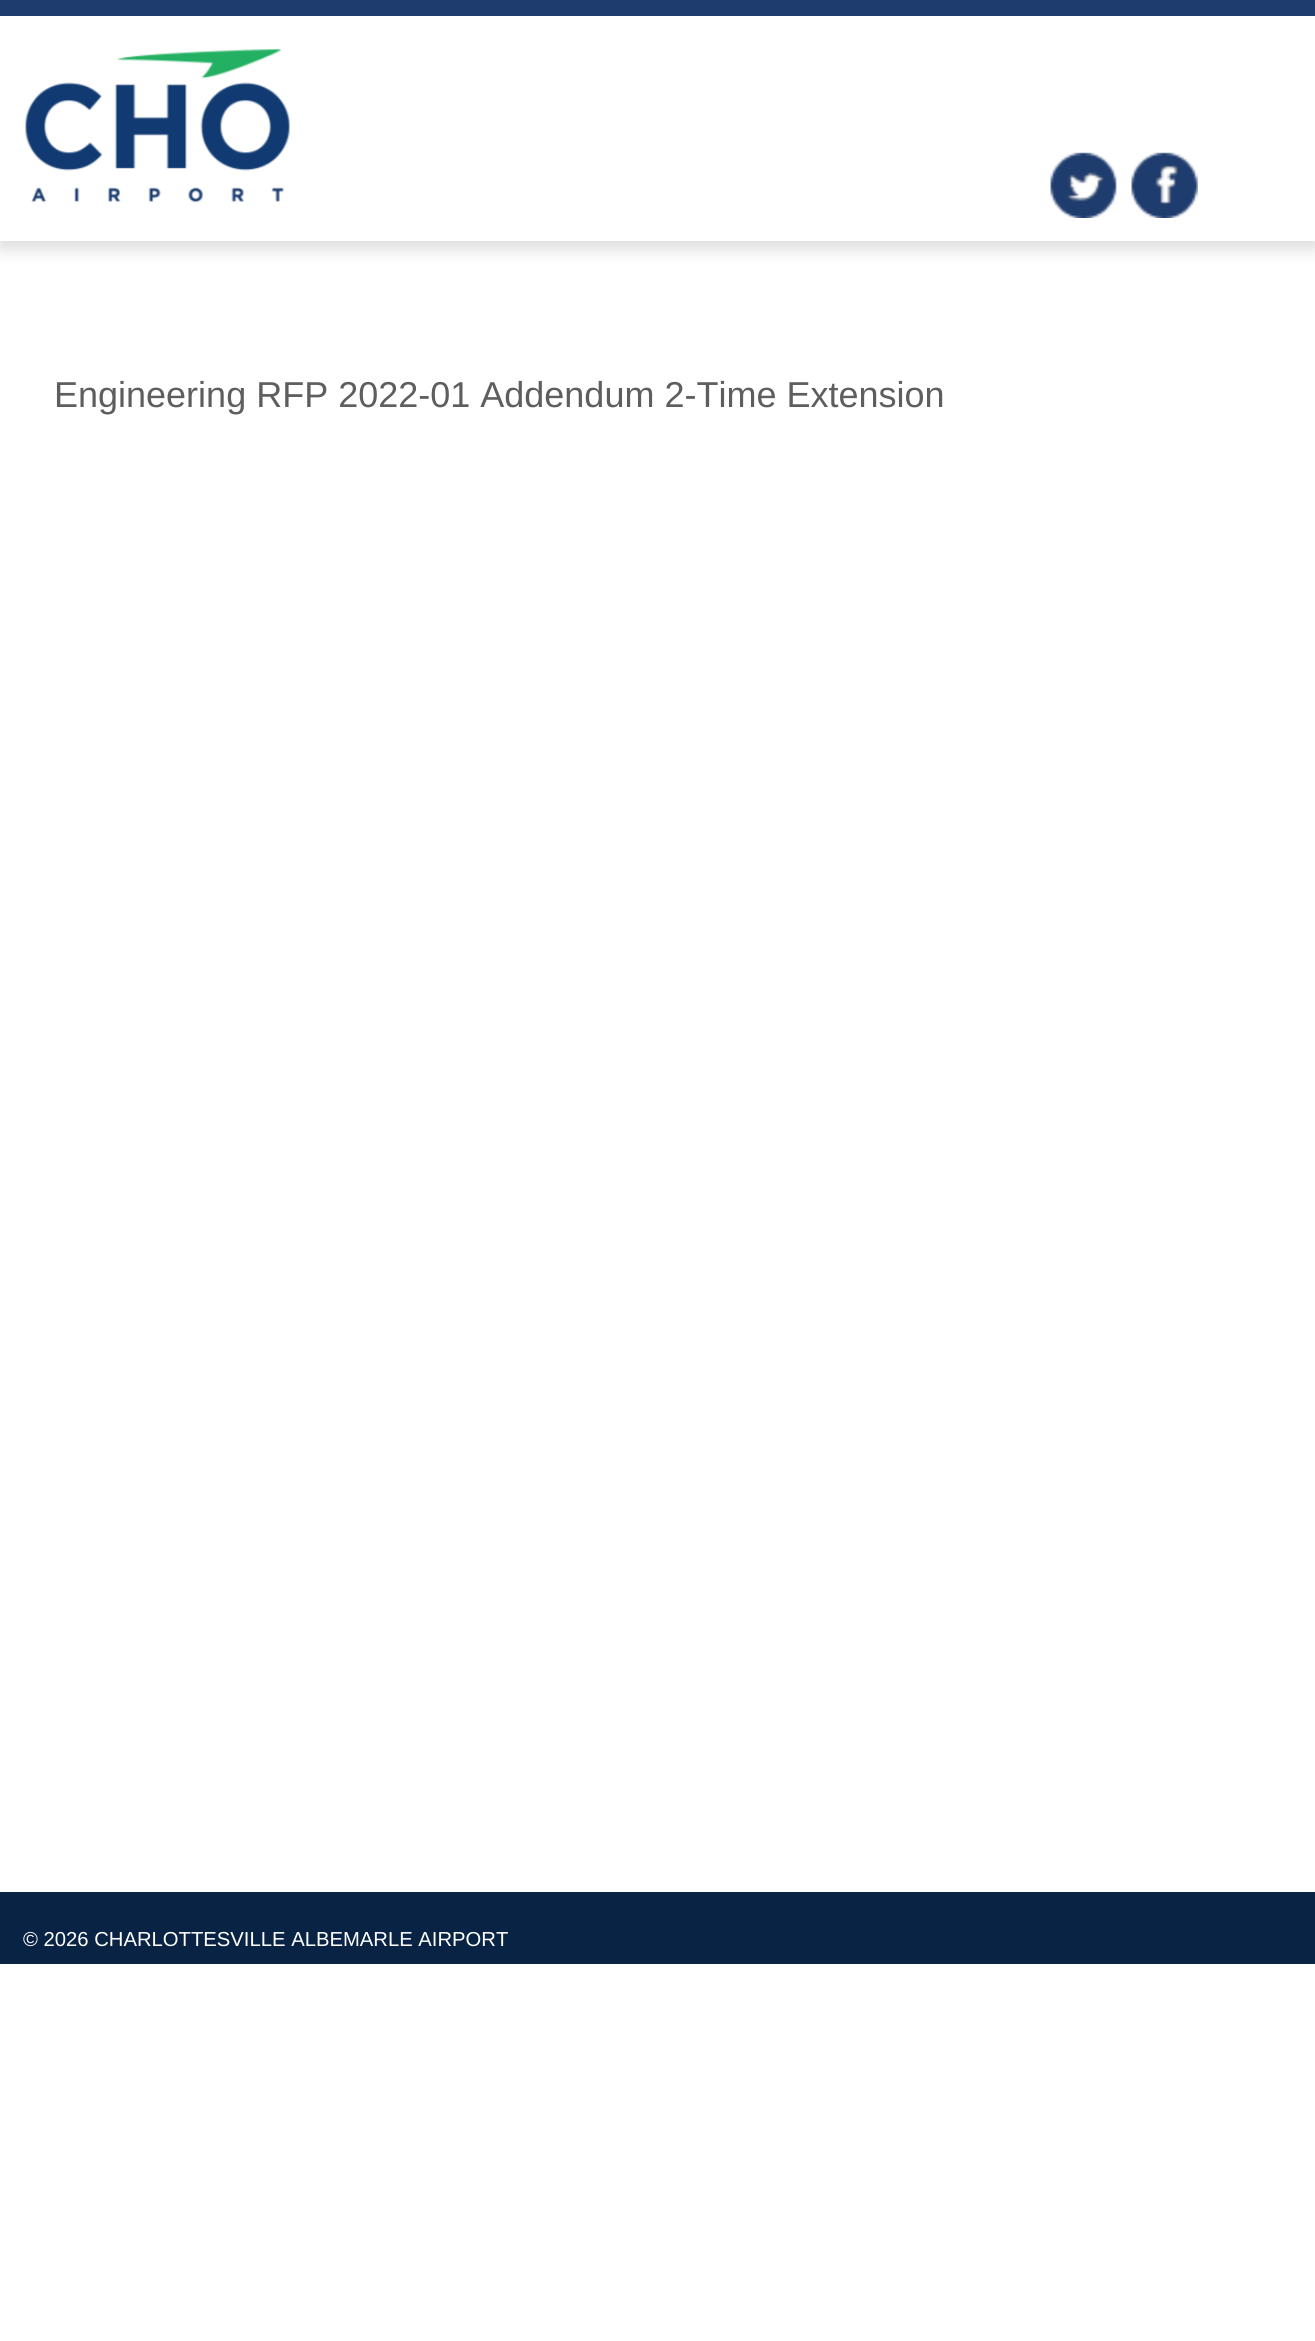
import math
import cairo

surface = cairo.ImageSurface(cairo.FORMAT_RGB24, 1315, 2341)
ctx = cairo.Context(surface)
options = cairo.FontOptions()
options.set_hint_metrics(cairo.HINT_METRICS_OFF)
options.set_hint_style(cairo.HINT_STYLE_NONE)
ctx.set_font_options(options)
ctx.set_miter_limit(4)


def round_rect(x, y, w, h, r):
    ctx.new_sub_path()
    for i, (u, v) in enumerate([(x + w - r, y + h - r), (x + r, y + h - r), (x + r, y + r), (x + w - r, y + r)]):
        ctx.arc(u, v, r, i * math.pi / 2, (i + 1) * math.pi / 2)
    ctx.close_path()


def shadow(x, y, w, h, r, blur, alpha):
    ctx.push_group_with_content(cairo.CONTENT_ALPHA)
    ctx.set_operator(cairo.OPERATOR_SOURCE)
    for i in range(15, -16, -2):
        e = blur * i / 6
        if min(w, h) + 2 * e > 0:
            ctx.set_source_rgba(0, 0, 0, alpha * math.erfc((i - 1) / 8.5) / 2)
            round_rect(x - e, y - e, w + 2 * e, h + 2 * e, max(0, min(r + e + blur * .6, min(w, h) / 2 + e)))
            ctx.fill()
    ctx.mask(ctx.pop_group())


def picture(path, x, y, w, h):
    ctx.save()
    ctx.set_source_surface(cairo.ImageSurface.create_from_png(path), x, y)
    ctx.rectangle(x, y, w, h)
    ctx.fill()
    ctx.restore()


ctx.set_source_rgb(1, 1, 1)
ctx.paint()
ctx.set_source_rgb(0, 0, 0)
shadow(0, 7, 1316, 241, 0, 9, 0.15)
ctx.set_source_rgb(1, 1, 1)
ctx.rectangle(0, 16, 1315, 225)
ctx.fill()
ctx.set_source_rgb(0.122, 0.235, 0.431)
ctx.rectangle(0, 0, 1315, 16)
ctx.fill()
picture("img1.png", 25, 49, 265, 154)
picture("img2.png", 1050, 152, 67, 66)
picture("img3.png", 1131, 152, 67, 66)
ctx.select_font_face("Liberation Sans")
ctx.set_font_size(36)
ctx.set_source_rgb(0.369, 0.369, 0.369)
ctx.move_to(54, 407)
ctx.show_text("Engineering RFP 2022-01 Addendum 2-Time Extension")
ctx.set_source_rgb(0.039, 0.137, 0.267)
ctx.rectangle(0, 1892, 1315, 72)
ctx.fill()
ctx.set_font_size(20.25)
ctx.set_source_rgb(1, 1, 1)
ctx.move_to(23, 1946)
ctx.show_text("© 2026 CHARLOTTESVILLE ALBEMARLE AIRPORT")
surface.write_to_png("page.png")
